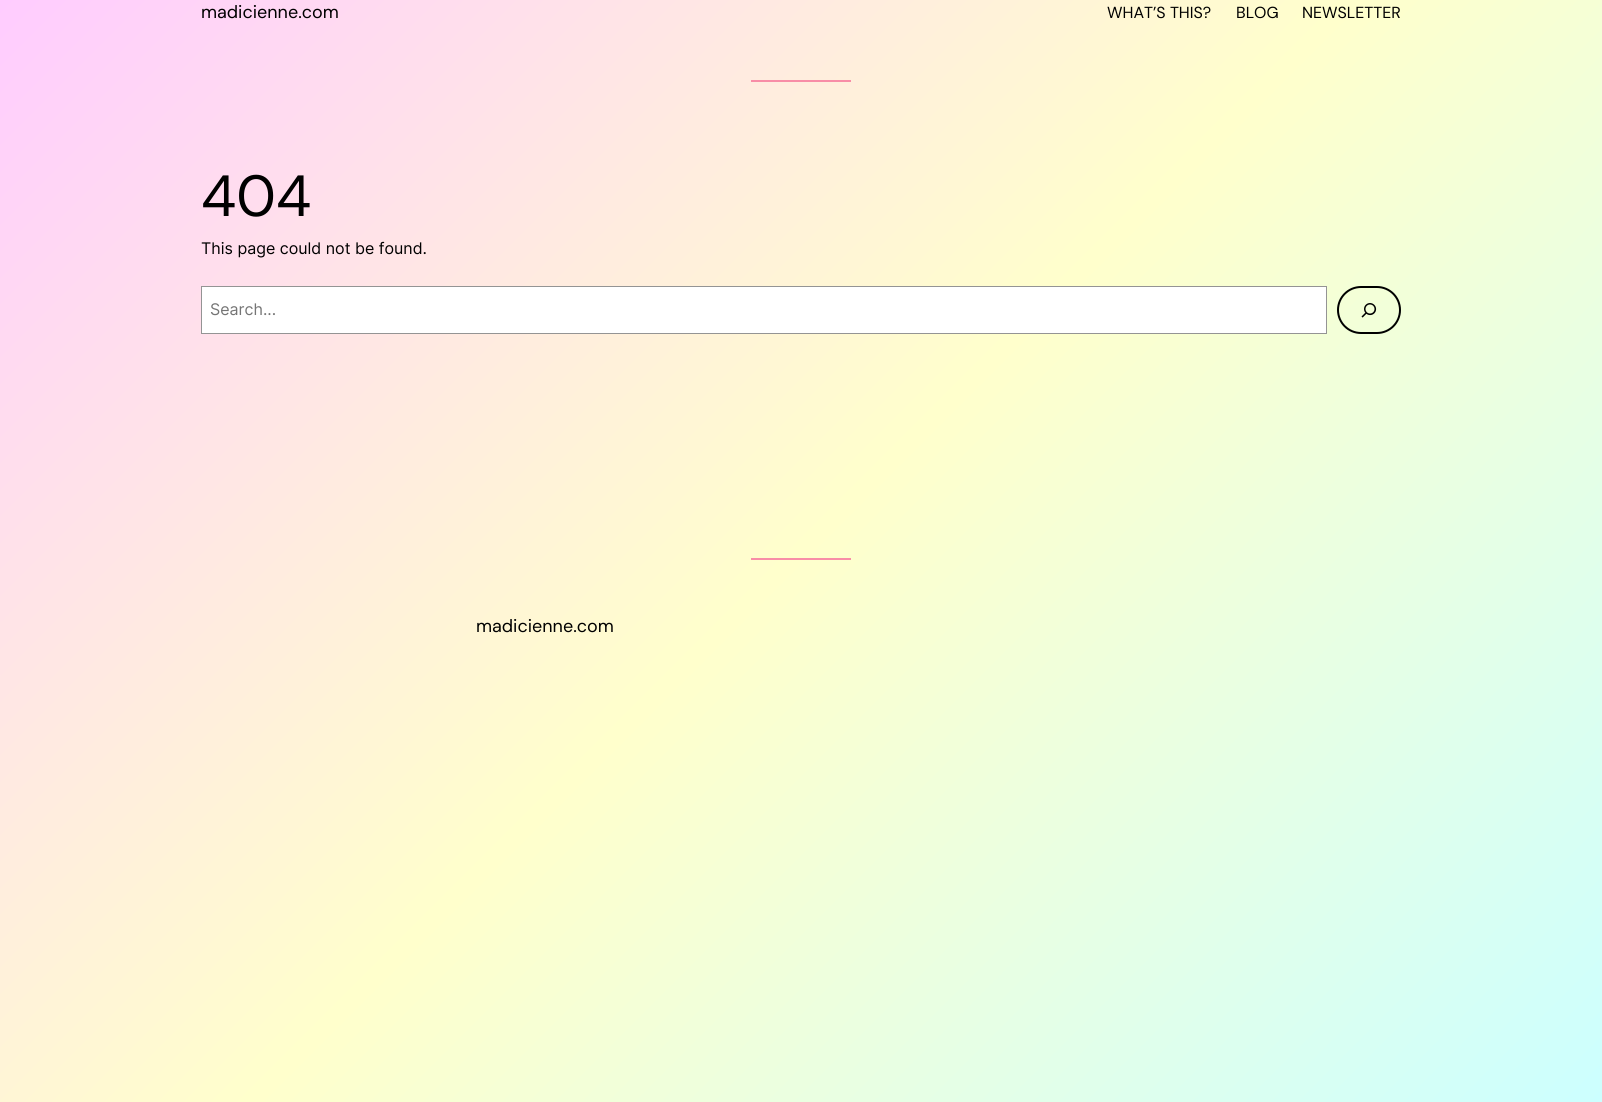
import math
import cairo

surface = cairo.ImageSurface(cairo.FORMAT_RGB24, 1602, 1102)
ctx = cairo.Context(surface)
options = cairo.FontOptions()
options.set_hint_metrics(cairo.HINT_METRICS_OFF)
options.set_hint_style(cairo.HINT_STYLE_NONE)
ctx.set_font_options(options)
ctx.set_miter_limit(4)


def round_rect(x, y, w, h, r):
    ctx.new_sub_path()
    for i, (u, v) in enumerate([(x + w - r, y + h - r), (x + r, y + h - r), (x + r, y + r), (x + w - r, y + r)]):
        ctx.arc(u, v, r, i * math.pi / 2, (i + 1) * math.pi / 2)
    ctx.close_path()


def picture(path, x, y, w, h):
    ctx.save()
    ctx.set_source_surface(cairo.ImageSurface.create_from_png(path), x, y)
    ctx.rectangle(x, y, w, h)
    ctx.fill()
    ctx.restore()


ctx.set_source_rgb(1, 1, 1)
ctx.paint()
gradient = cairo.LinearGradient(125, -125, 1477, 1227)
gradient.add_color_stop_rgba(0, 1, 0.8, 1, 1)
gradient.add_color_stop_rgba(0.5, 1, 1, 0.8, 1)
gradient.add_color_stop_rgba(1, 0.8, 1, 1, 1)
ctx.set_source(gradient)
ctx.rectangle(0, 0, 1602, 1102)
ctx.fill()
ctx.select_font_face("DM Sans")
ctx.set_font_size(18)
ctx.set_source_rgb(0, 0, 0)
ctx.move_to(201, 18)
ctx.show_text("madicienne.com")
ctx.set_font_size(16)
ctx.move_to(1107, 18)
ctx.show_text("WHAT’S THIS?")
ctx.move_to(1236, 18)
ctx.show_text("BLOG")
ctx.move_to(1302, 18)
ctx.show_text("NEWSLETTER")
ctx.set_source_rgb(0.969, 0.553, 0.655)
ctx.rectangle(751, 80, 100, 2)
ctx.fill()
ctx.set_font_size(58)
ctx.set_source_rgb(0, 0, 0)
ctx.move_to(201, 216)
ctx.show_text("404")
ctx.select_font_face("Inter")
ctx.set_font_size(16)
ctx.move_to(201, 254)
ctx.show_text("This page could not be found.")
ctx.set_source_rgb(1, 1, 1)
ctx.rectangle(201.5, 286.5, 1125, 47)
ctx.fill_preserve()
ctx.set_source_rgb(0.58, 0.58, 0.58)
ctx.set_line_width(1)
ctx.stroke()
ctx.set_source_rgb(0.459, 0.459, 0.459)
ctx.move_to(210, 315)
ctx.show_text("Search...")
round_rect(1338, 287, 62, 46, 23)
ctx.set_source_rgb(0, 0, 0)
ctx.set_line_width(2)
ctx.stroke()
picture("img1.png", 1361, 303, 16, 15)
ctx.set_source_rgb(0.969, 0.553, 0.655)
ctx.rectangle(751, 558, 100, 2)
ctx.fill()
ctx.select_font_face("DM Sans")
ctx.set_font_size(18)
ctx.set_source_rgb(0, 0, 0)
ctx.move_to(476, 632)
ctx.show_text("madicienne.com")
surface.write_to_png("page.png")
